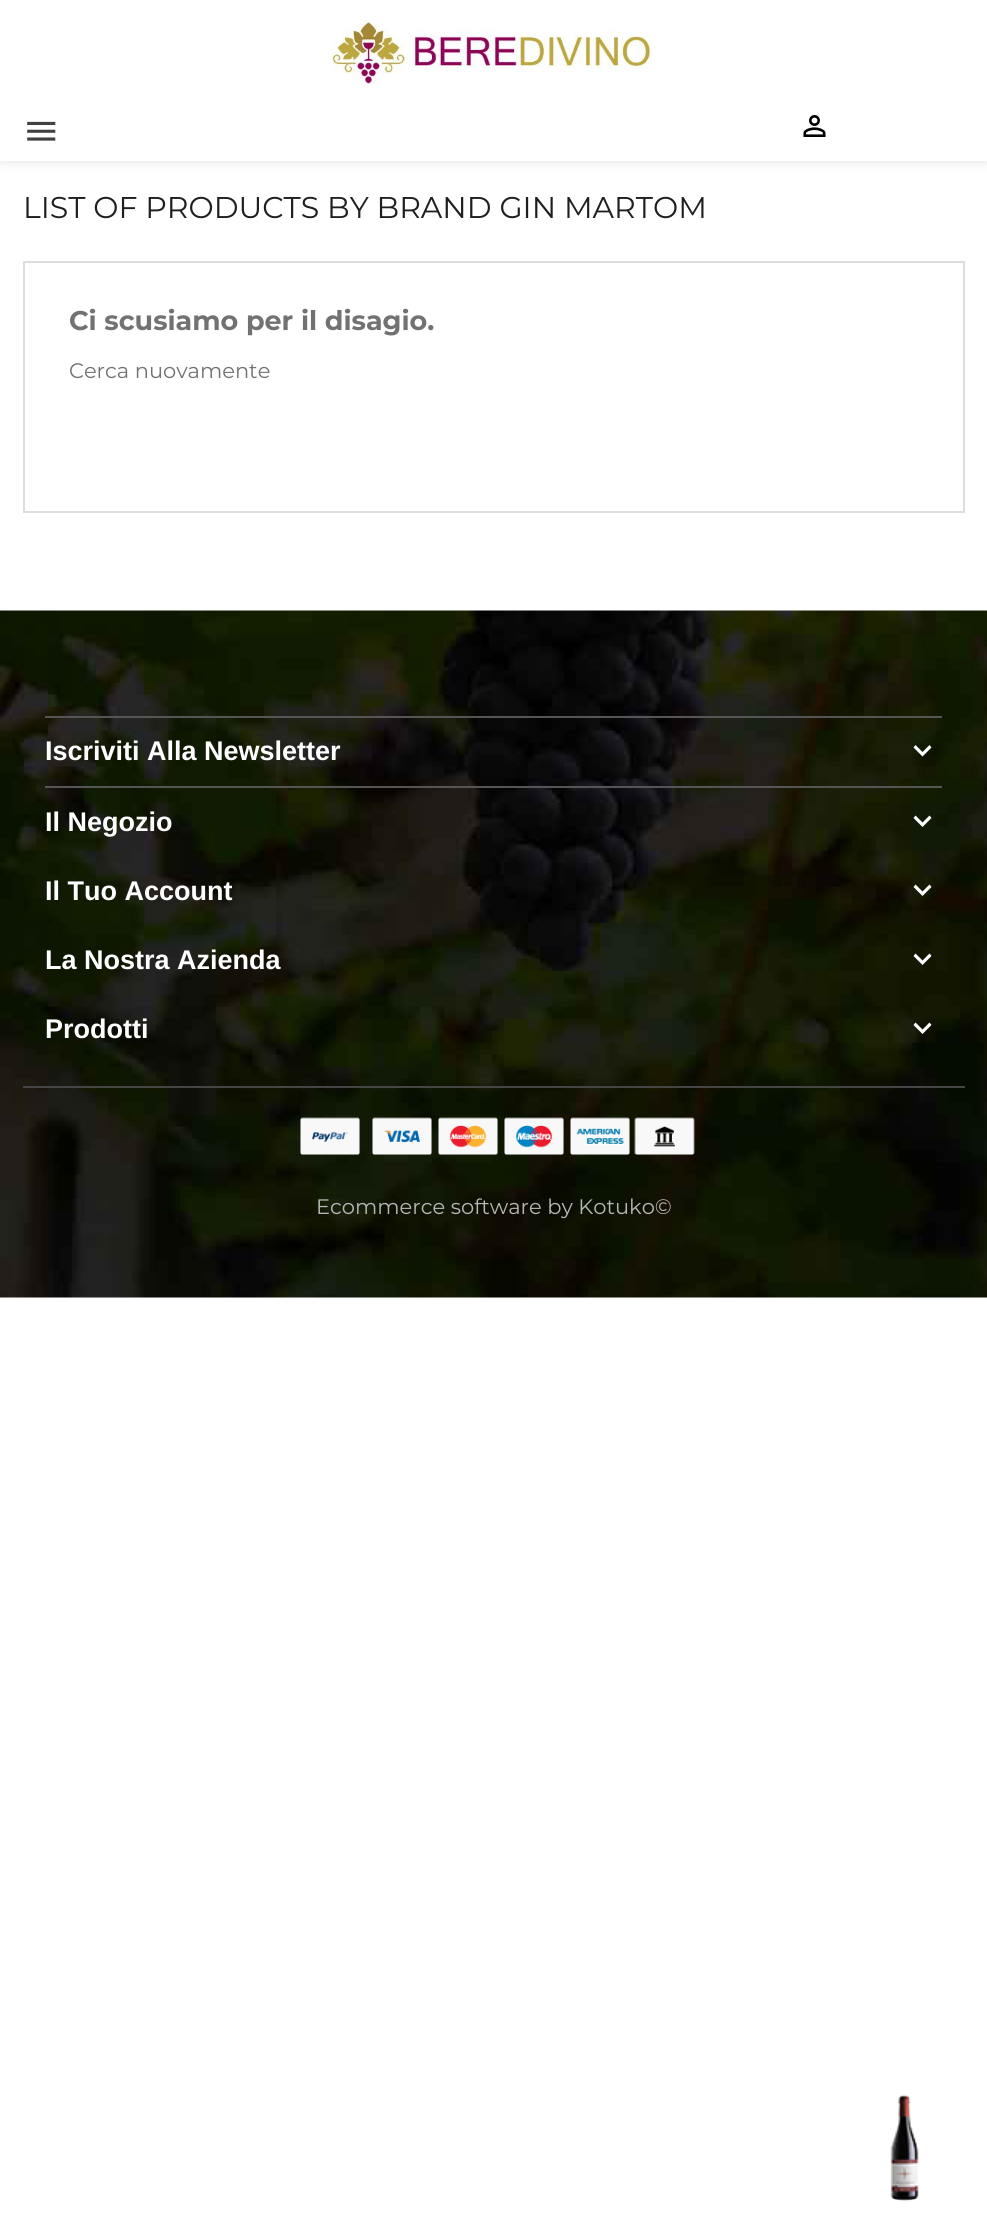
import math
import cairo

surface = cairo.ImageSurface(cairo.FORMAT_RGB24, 987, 2223)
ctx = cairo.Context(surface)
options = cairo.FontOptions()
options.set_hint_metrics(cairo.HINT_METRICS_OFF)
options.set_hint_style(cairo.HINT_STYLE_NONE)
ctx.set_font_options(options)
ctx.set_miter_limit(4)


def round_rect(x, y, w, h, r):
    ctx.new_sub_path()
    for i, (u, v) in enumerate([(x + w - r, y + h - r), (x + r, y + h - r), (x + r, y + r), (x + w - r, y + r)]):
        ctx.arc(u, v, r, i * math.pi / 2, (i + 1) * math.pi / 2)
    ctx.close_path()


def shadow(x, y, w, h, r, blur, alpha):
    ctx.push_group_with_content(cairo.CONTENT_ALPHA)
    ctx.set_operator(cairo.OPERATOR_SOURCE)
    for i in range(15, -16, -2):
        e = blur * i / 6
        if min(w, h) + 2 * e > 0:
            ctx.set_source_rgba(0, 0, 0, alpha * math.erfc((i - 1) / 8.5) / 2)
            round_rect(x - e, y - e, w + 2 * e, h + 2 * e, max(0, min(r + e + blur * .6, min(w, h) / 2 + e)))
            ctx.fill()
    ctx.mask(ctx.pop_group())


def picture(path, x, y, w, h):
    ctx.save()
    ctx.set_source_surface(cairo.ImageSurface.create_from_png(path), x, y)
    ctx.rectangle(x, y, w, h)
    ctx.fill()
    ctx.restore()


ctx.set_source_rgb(1, 1, 1)
ctx.paint()
ctx.set_source_rgb(0, 0, 0)
shadow(0, 0, 987, 161, 0, 6, 0.12)
ctx.set_source_rgb(1, 1, 1)
ctx.rectangle(0, 0, 987, 161)
ctx.fill()
picture("img1.png", 331, 18, 321, 67)
picture("img2.png", 27, 121, 29, 20)
picture("img3.png", 803, 115, 23, 22)
ctx.select_font_face("Montserrat")
ctx.set_font_size(30)
ctx.set_source_rgb(0.122, 0.122, 0.122)
ctx.move_to(23, 218)
ctx.show_text("LIST OF PRODUCTS BY BRAND GIN MARTOM")
ctx.rectangle(24, 262, 940, 250)
ctx.set_source_rgb(0.867, 0.867, 0.867)
ctx.stroke()
ctx.select_font_face("Montserrat", cairo.FONT_SLANT_NORMAL, cairo.FONT_WEIGHT_BOLD)
ctx.set_font_size(27)
ctx.set_source_rgb(0.447, 0.447, 0.447)
ctx.move_to(69, 330)
ctx.show_text("Ci scusiamo per il disagio.")
ctx.select_font_face("Montserrat")
ctx.set_font_size(21)
ctx.move_to(69, 378)
ctx.show_text("Cerca nuovamente")
picture("img4.png", 0, 610, 987, 688)
ctx.set_source_rgb(0.333, 0.333, 0.333)
ctx.rectangle(45, 716, 897, 2)
ctx.fill()
ctx.rectangle(45, 786, 897, 2)
ctx.fill()
ctx.select_font_face("Liberation Sans", cairo.FONT_SLANT_NORMAL, cairo.FONT_WEIGHT_BOLD)
ctx.set_font_size(27)
ctx.set_source_rgb(1, 1, 1)
ctx.move_to(45, 760)
ctx.show_text("Iscriviti Alla Newsletter")
ctx.new_path()
ctx.move_to(915.5, 745)
ctx.line_to(922.5, 752)
ctx.line_to(929.5, 745)
ctx.line_to(931.5, 747.5)
ctx.line_to(922.5, 756.5)
ctx.line_to(913.5, 747.5)
ctx.close_path()
ctx.fill()
ctx.move_to(45, 831)
ctx.show_text("Il Negozio")
ctx.new_path()
ctx.move_to(915.5, 815.5)
ctx.line_to(922.5, 822.5)
ctx.line_to(929.5, 815.5)
ctx.line_to(931.5, 818)
ctx.line_to(922.5, 827)
ctx.line_to(913.5, 818)
ctx.close_path()
ctx.fill()
ctx.move_to(45, 900)
ctx.show_text("Il Tuo Account")
ctx.new_path()
ctx.move_to(915.5, 884.5)
ctx.line_to(922.5, 891.5)
ctx.line_to(929.5, 884.5)
ctx.line_to(931.5, 887)
ctx.line_to(922.5, 896)
ctx.line_to(913.5, 887)
ctx.close_path()
ctx.fill()
ctx.move_to(45, 969)
ctx.show_text("La Nostra Azienda")
ctx.new_path()
ctx.move_to(915.5, 953.5)
ctx.line_to(922.5, 960.5)
ctx.line_to(929.5, 953.5)
ctx.line_to(931.5, 956)
ctx.line_to(922.5, 965)
ctx.line_to(913.5, 956)
ctx.close_path()
ctx.fill()
ctx.move_to(45, 1038)
ctx.show_text("Prodotti")
ctx.new_path()
ctx.move_to(915.5, 1022.5)
ctx.line_to(922.5, 1029.5)
ctx.line_to(929.5, 1022.5)
ctx.line_to(931.5, 1025)
ctx.line_to(922.5, 1034)
ctx.line_to(913.5, 1025)
ctx.close_path()
ctx.fill()
ctx.set_source_rgb(0.271, 0.271, 0.271)
ctx.rectangle(23, 1086, 942, 2)
ctx.fill()
picture("img5.png", 300, 1117, 60, 38)
picture("img6.png", 372, 1117, 60, 38)
picture("img7.png", 438, 1117, 60, 38)
picture("img8.png", 504, 1117, 60, 38)
picture("img9.png", 570, 1117, 60, 38)
picture("img10.png", 634, 1117, 61, 38)
ctx.select_font_face("Montserrat")
ctx.set_font_size(21)
ctx.set_source_rgb(0.714, 0.714, 0.714)
ctx.move_to(316, 1214)
ctx.show_text("Ecommerce software by Kotuko©")
picture("img11.png", 890, 2095, 29, 106)
surface.write_to_png("page.png")
